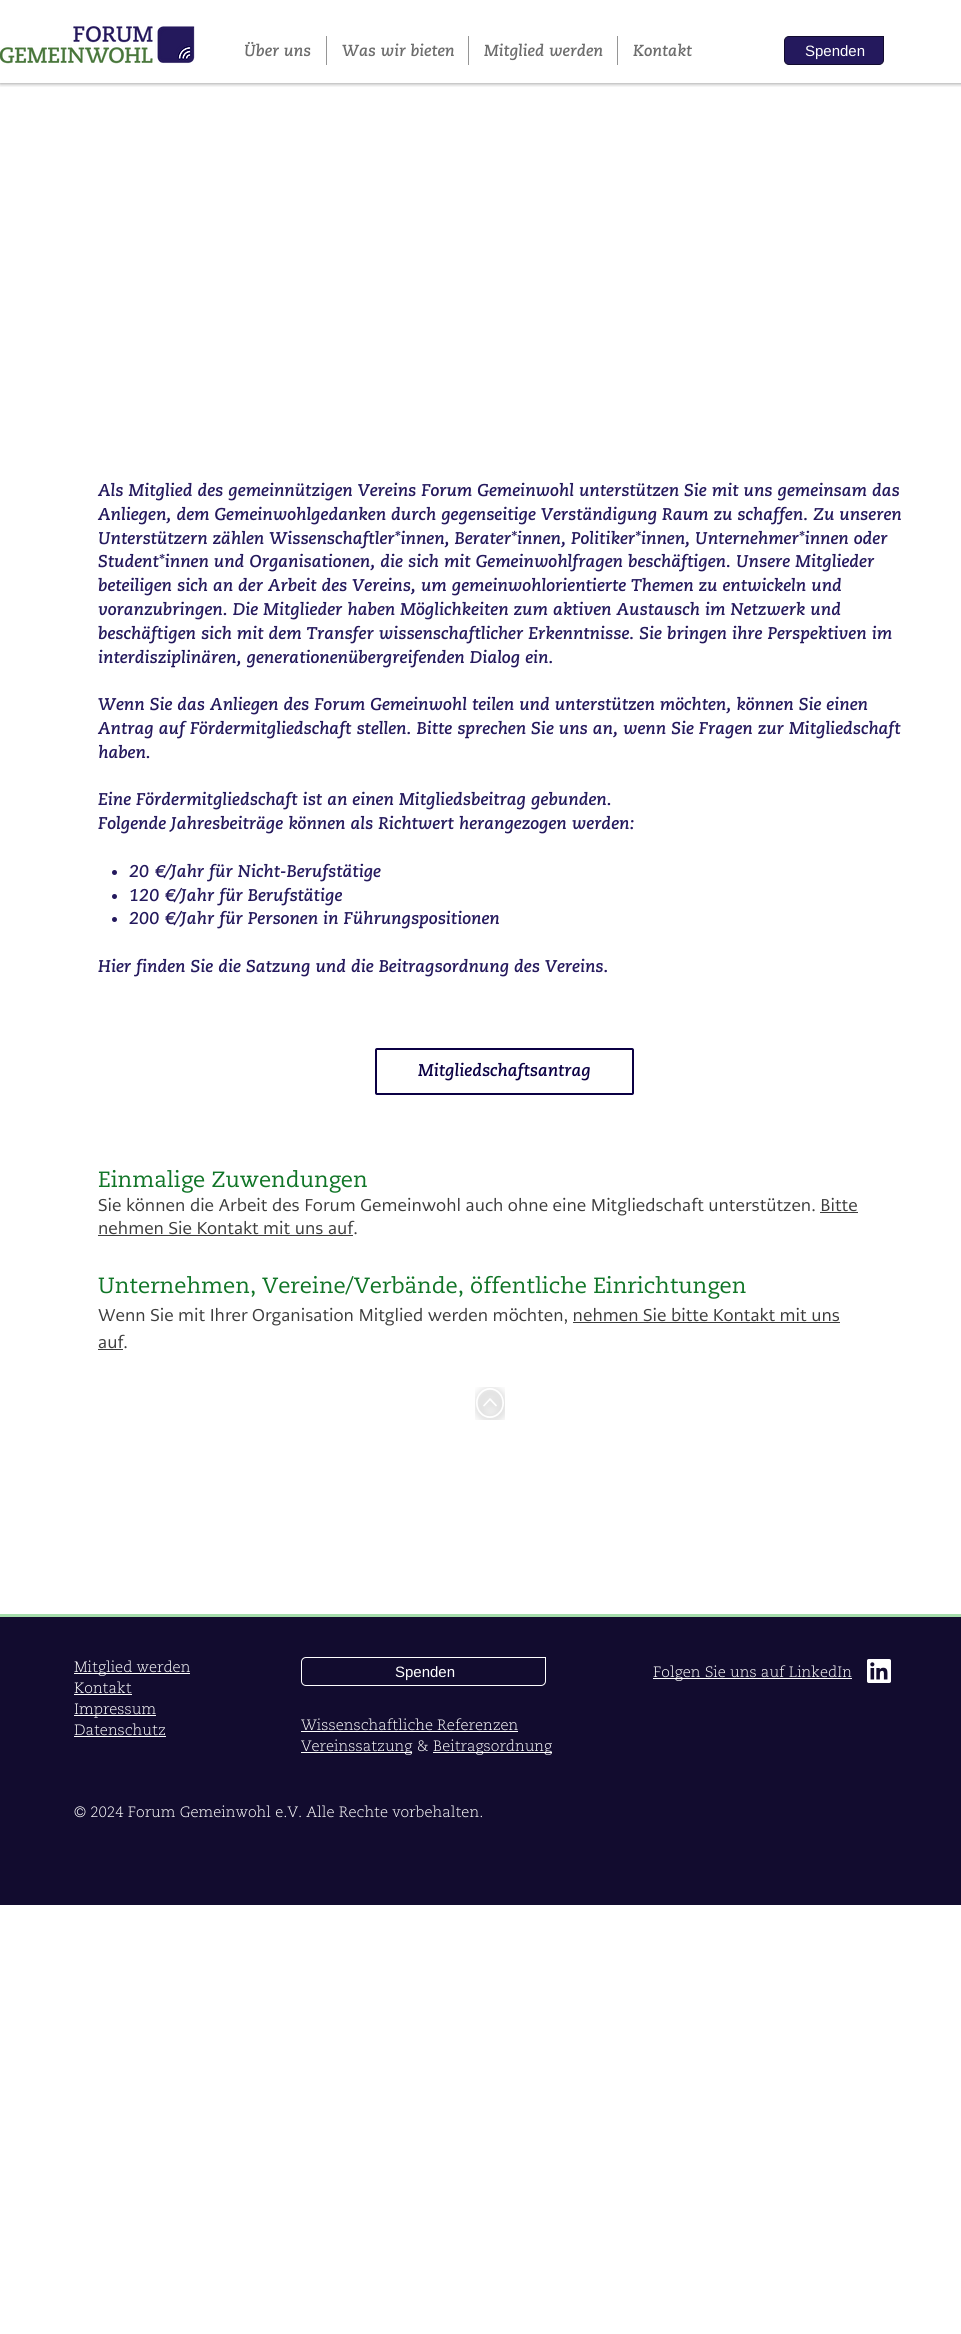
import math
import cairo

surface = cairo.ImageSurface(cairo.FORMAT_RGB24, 961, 2334)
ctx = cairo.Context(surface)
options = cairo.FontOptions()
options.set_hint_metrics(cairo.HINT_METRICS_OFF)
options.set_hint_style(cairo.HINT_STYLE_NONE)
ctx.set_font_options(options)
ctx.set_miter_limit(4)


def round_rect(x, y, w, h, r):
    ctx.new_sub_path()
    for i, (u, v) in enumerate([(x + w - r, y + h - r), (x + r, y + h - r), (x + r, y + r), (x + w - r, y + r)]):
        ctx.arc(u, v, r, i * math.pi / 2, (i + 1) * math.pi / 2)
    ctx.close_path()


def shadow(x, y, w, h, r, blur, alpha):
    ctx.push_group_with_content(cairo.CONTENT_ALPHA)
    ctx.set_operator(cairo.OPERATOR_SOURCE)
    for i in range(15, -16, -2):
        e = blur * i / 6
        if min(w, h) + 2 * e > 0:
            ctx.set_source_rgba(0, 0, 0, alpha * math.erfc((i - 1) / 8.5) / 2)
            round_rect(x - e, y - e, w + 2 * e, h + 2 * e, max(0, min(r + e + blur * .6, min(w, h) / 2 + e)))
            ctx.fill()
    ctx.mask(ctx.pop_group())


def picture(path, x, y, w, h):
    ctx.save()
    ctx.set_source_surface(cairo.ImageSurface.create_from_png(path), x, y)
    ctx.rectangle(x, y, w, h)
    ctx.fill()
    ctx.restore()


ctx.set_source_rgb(1, 1, 1)
ctx.paint()
ctx.save()
ctx.rectangle(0, 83, 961, 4)
ctx.clip()
ctx.set_source_rgb(0, 0, 0)
shadow(0, 0, 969, 83, 0, 2.5, 0.5)
ctx.restore()
picture("img1.png", 0, 26, 195, 38)
ctx.select_font_face("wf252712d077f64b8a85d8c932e", cairo.FONT_SLANT_NORMAL, cairo.FONT_WEIGHT_BOLD)
ctx.set_font_size(16)
ctx.set_source_rgb(0.427, 0.427, 0.427)
ctx.move_to(244, 56)
ctx.show_text("Über uns")
ctx.set_source_rgb(0.588, 0.588, 0.588)
ctx.rectangle(326, 36, 1, 29)
ctx.fill()
ctx.set_source_rgb(0.427, 0.427, 0.427)
ctx.move_to(342, 56)
ctx.show_text("Was wir bieten")
ctx.set_source_rgb(0.588, 0.588, 0.588)
ctx.rectangle(468, 36, 1, 29)
ctx.fill()
ctx.set_source_rgb(0.427, 0.427, 0.427)
ctx.move_to(484, 56)
ctx.show_text("Mitglied werden")
ctx.set_source_rgb(0.588, 0.588, 0.588)
ctx.rectangle(617, 36, 1, 29)
ctx.fill()
ctx.set_source_rgb(0.427, 0.427, 0.427)
ctx.move_to(633, 56)
ctx.show_text("Kontakt")
ctx.set_source_rgb(0.141, 0.098, 0.365)
ctx.new_path()
ctx.move_to(789, 36.5)
ctx.line_to(883.5, 36.5)
ctx.line_to(883.5, 60)
ctx.curve_to(883.5, 62.5, 881.5, 64.5, 879, 64.5)
ctx.line_to(789, 64.5)
ctx.curve_to(786.5, 64.5, 784.5, 62.5, 784.5, 60)
ctx.line_to(784.5, 41)
ctx.curve_to(784.5, 38.5, 786.5, 36.5, 789, 36.5)
ctx.close_path()
ctx.fill_preserve()
ctx.set_source_rgb(0.071, 0.047, 0.184)
ctx.set_line_width(1)
ctx.stroke()
ctx.select_font_face("Liberation Sans")
ctx.set_font_size(15)
ctx.set_source_rgb(1, 1, 1)
ctx.move_to(805, 56)
ctx.show_text("Spenden")
ctx.select_font_face("wf252712d077f64b8a85d8c932e", cairo.FONT_SLANT_NORMAL, cairo.FONT_WEIGHT_BOLD)
ctx.set_font_size(17)
ctx.set_source_rgb(0.141, 0.098, 0.365)
ctx.move_to(98, 496)
ctx.show_text("Als Mitglied des gemeinnützigen Vereins Forum Gemeinwohl unterstützen Sie mit uns gemeinsam das")
ctx.move_to(98, 520)
ctx.show_text("Anliegen, dem Gemeinwohlgedanken durch gegenseitige Verständigung Raum zu schaffen. Zu unseren")
ctx.move_to(98, 544)
ctx.show_text("Unterstützern zählen Wissenschaftler*innen, Berater*innen, Politiker*innen, Unternehmer*innen oder")
ctx.move_to(98, 567)
ctx.show_text("Student*innen und Organisationen, die sich mit Gemeinwohlfragen beschäftigen. Unsere Mitglieder")
ctx.move_to(98, 591)
ctx.show_text("beteiligen sich an der Arbeit des Vereins, um gemeinwohlorientierte Themen zu entwickeln und")
ctx.move_to(98, 615)
ctx.show_text("voranzubringen. Die Mitglieder haben Möglichkeiten zum aktiven Austausch im Netzwerk und")
ctx.move_to(98, 639)
ctx.show_text("beschäftigen sich mit dem Transfer wissenschaftlicher Erkenntnisse. Sie bringen ihre Perspektiven im")
ctx.move_to(98, 663)
ctx.show_text("interdisziplinären, generationenübergreifenden Dialog ein.")
ctx.move_to(98, 710)
ctx.show_text("Wenn Sie das Anliegen des Forum Gemeinwohl teilen und unterstützen möchten, können Sie einen")
ctx.move_to(98, 734)
ctx.show_text("Antrag auf Fördermitgliedschaft stellen. Bitte sprechen Sie uns an, wenn Sie Fragen zur Mitgliedschaft")
ctx.move_to(98, 758)
ctx.show_text("haben.")
ctx.move_to(98, 805)
ctx.show_text("Eine Fördermitgliedschaft ist an einen Mitgliedsbeitrag gebunden.")
ctx.move_to(98, 829)
ctx.show_text("Folgende Jahresbeiträge können als Richtwert herangezogen werden:")
ctx.new_path()
ctx.arc(114.5, 872.5, 2.5, 0, 2 * math.pi)
ctx.fill()
ctx.move_to(129, 877)
ctx.show_text("20 €/Jahr für Nicht-Berufstätige")
ctx.new_path()
ctx.arc(114.5, 896.5, 2.5, 0, 2 * math.pi)
ctx.fill()
ctx.move_to(129, 901)
ctx.show_text("120 €/Jahr für Berufstätige")
ctx.new_path()
ctx.arc(114.5, 919.5, 2.5, 0, 2 * math.pi)
ctx.fill()
ctx.move_to(129, 924)
ctx.show_text("200 €/Jahr für Personen in Führungspositionen")
ctx.move_to(98, 972)
ctx.show_text("Hier finden Sie die Satzung und die Beitragsordnung des Vereins.")
round_rect(376, 1049, 257, 45, 1)
ctx.set_source_rgb(0.043, 0, 0.267)
ctx.set_line_width(2)
ctx.stroke()
ctx.move_to(418, 1076)
ctx.show_text("Mitgliedschaftsantrag")
ctx.select_font_face("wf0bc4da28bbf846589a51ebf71")
ctx.set_font_size(22)
ctx.set_source_rgb(0.063, 0.459, 0.153)
ctx.move_to(98, 1187)
ctx.show_text("Einmalige Zuwendungen")
ctx.select_font_face("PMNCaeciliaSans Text")
ctx.set_font_size(17)
ctx.set_source_rgb(0.235, 0.235, 0.235)
ctx.move_to(98, 1211)
ctx.show_text("Sie können die Arbeit des Forum Gemeinwohl auch ohne eine Mitgliedschaft unterstützen. Bitte")
ctx.move_to(98, 1234)
ctx.show_text("nehmen Sie Kontakt mit uns auf.")
ctx.rectangle(820, 1212, 38, 1)
ctx.fill()
ctx.rectangle(98, 1235, 255, 1)
ctx.fill()
ctx.select_font_face("wf0bc4da28bbf846589a51ebf71")
ctx.set_font_size(22)
ctx.set_source_rgb(0.063, 0.459, 0.153)
ctx.move_to(98, 1293)
ctx.show_text("Unternehmen, Vereine/Verbände, öffentliche Einrichtungen")
ctx.select_font_face("PMNCaeciliaSans Text")
ctx.set_font_size(17)
ctx.set_source_rgb(0.235, 0.235, 0.235)
ctx.move_to(98, 1321)
ctx.show_text("Wenn Sie mit Ihrer Organisation Mitglied werden möchten, nehmen Sie bitte Kontakt mit uns")
ctx.move_to(98, 1348)
ctx.show_text("auf.")
ctx.rectangle(573, 1322, 267, 1)
ctx.fill()
ctx.rectangle(98, 1349, 25, 1)
ctx.fill()
picture("img2.png", 475, 1387, 30, 33)
ctx.set_source_rgb(0.071, 0.047, 0.184)
ctx.rectangle(0, 1617, 961, 288)
ctx.fill()
ctx.set_source_rgb(0.647, 0.867, 0.671)
ctx.rectangle(0, 1614, 961, 3)
ctx.fill()
ctx.set_source_rgb(1, 1, 1)
ctx.rectangle(74, 1673, 116, 1)
ctx.fill()
ctx.select_font_face("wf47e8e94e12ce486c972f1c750 Light")
ctx.set_font_size(15)
ctx.move_to(74, 1672)
ctx.show_text("Mitglied werden")
ctx.move_to(74, 1693)
ctx.show_text("Kontakt")
ctx.rectangle(74, 1694, 58, 1)
ctx.fill()
ctx.rectangle(74, 1715, 82, 1)
ctx.fill()
ctx.move_to(74, 1714)
ctx.show_text("Impressum")
ctx.move_to(74, 1735)
ctx.show_text("Datenschutz")
ctx.rectangle(74, 1736, 92, 1)
ctx.fill()
ctx.new_path()
ctx.move_to(306, 1657.5)
ctx.line_to(545.5, 1657.5)
ctx.line_to(545.5, 1681)
ctx.curve_to(545.5, 1683.5, 543.5, 1685.5, 541, 1685.5)
ctx.line_to(306, 1685.5)
ctx.curve_to(303.5, 1685.5, 301.5, 1683.5, 301.5, 1681)
ctx.line_to(301.5, 1662)
ctx.curve_to(301.5, 1659.5, 303.5, 1657.5, 306, 1657.5)
ctx.close_path()
ctx.set_line_width(1)
ctx.stroke()
ctx.select_font_face("Liberation Sans")
ctx.move_to(395, 1677)
ctx.show_text("Spenden")
ctx.rectangle(653, 1678, 199, 1)
ctx.fill()
ctx.select_font_face("wf47e8e94e12ce486c972f1c750 Light")
ctx.move_to(653, 1677)
ctx.show_text("Folgen Sie uns auf LinkedIn")
picture("img3.png", 867, 1659, 24, 24)
ctx.move_to(301, 1730)
ctx.show_text("Wissenschaftliche Referenzen")
ctx.rectangle(301, 1731, 217, 1)
ctx.fill()
ctx.rectangle(301, 1752, 111, 1)
ctx.fill()
ctx.move_to(301, 1751)
ctx.show_text("Vereinssatzung &")
ctx.rectangle(433, 1752, 119, 1)
ctx.fill()
ctx.move_to(433, 1751)
ctx.show_text("Beitragsordnung")
ctx.move_to(74, 1817)
ctx.show_text("© 2024 Forum Gemeinwohl e.V. Alle Rechte vorbehalten.")
surface.write_to_png("page.png")
